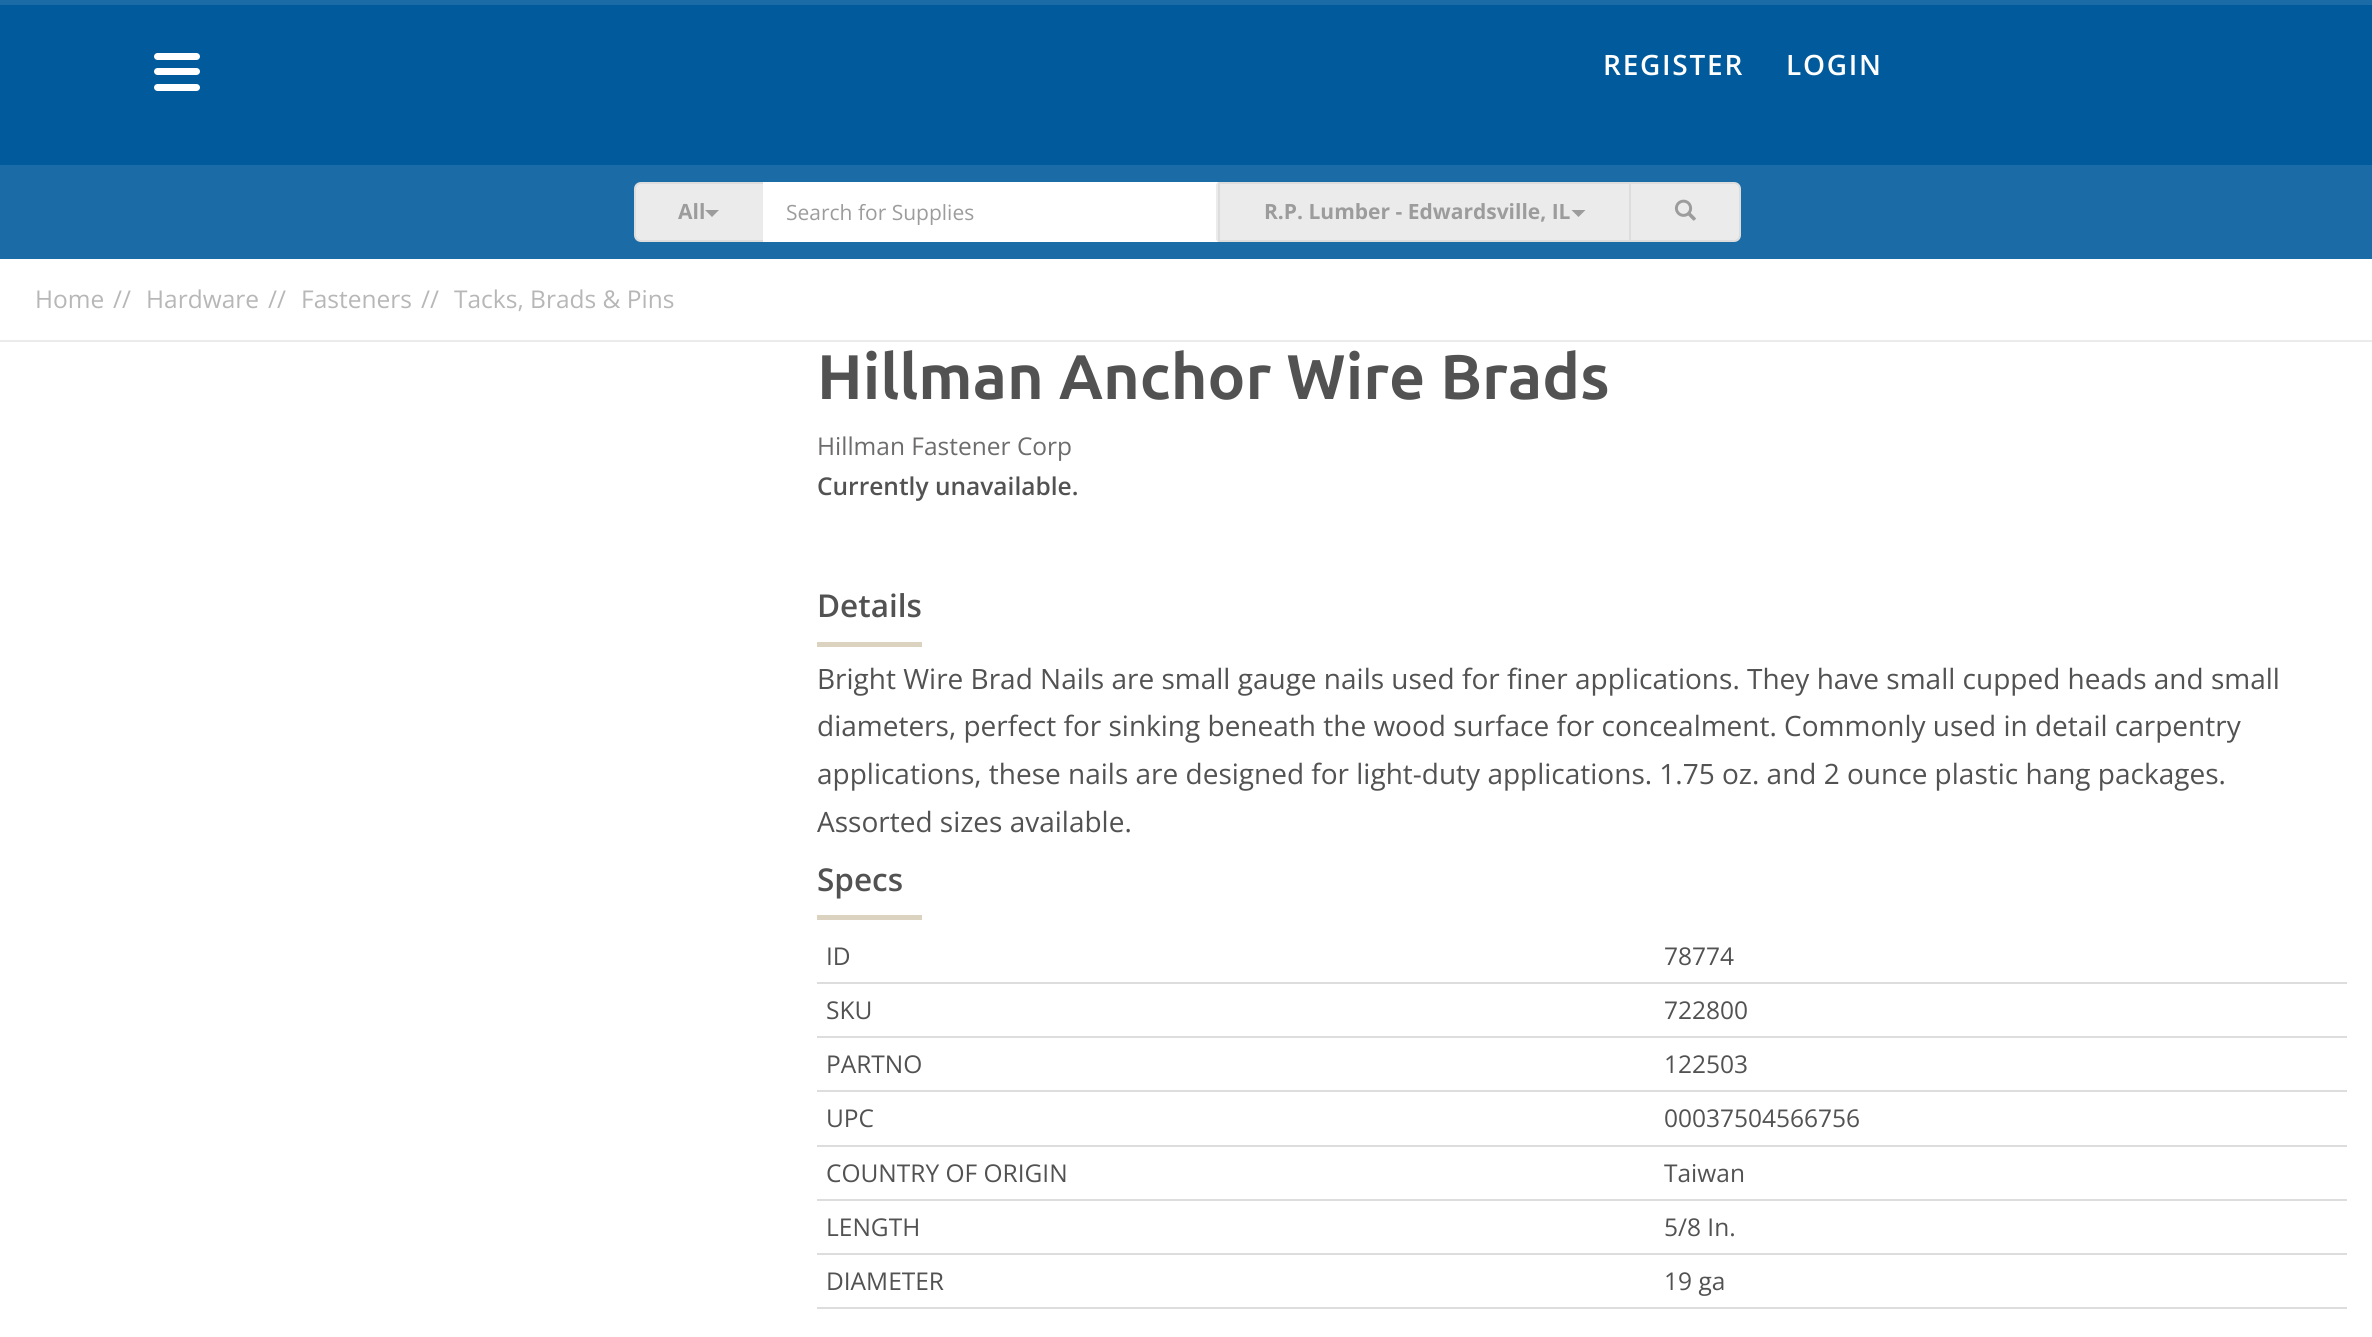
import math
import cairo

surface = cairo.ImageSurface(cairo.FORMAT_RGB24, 2372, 1337)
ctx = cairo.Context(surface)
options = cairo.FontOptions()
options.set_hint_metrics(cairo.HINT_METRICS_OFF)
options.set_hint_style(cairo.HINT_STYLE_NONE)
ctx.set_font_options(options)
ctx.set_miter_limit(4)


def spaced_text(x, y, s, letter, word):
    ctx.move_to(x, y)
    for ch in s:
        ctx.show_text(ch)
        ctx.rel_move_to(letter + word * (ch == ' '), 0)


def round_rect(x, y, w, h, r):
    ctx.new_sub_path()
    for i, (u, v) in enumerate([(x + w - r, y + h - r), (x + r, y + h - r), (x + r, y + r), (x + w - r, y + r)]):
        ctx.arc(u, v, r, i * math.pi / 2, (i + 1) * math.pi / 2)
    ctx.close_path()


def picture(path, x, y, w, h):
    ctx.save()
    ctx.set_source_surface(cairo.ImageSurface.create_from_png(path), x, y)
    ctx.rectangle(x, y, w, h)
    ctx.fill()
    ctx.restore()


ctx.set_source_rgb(1, 1, 1)
ctx.paint()
ctx.set_source_rgb(0, 0.353, 0.612)
ctx.rectangle(0, 5, 2372, 160)
ctx.fill()
ctx.set_source_rgb(0.102, 0.42, 0.651)
ctx.rectangle(0, 0, 2372, 5)
ctx.fill()
ctx.set_source_rgb(1, 1, 1)
round_rect(154, 53, 46, 7, 3.5)
ctx.fill()
round_rect(154, 68, 46, 7, 3.5)
ctx.fill()
round_rect(154, 84, 46, 7, 3.5)
ctx.fill()
ctx.select_font_face("Open Sans SemiBold")
ctx.set_font_size(28)
spaced_text(1603, 75, "REGISTER", 1.75, 0)
spaced_text(1786, 75, "LOGIN", 1.75, 0)
ctx.set_source_rgb(0.102, 0.42, 0.651)
ctx.rectangle(0, 165, 2372, 94)
ctx.fill()
ctx.set_source_rgb(0.918, 0.918, 0.918)
ctx.new_path()
ctx.move_to(641, 183)
ctx.line_to(764, 183)
ctx.line_to(764, 241)
ctx.line_to(641, 241)
ctx.curve_to(637.5, 241, 635, 238.5, 635, 235)
ctx.line_to(635, 189)
ctx.curve_to(635, 185.5, 637.5, 183, 641, 183)
ctx.close_path()
ctx.fill_preserve()
ctx.set_source_rgb(0.867, 0.867, 0.867)
ctx.stroke()
ctx.select_font_face("Open Sans", cairo.FONT_SLANT_NORMAL, cairo.FONT_WEIGHT_BOLD)
ctx.set_font_size(21)
ctx.set_source_rgb(0.612, 0.612, 0.612)
ctx.move_to(678, 219)
ctx.show_text("All")
ctx.new_path()
ctx.move_to(705, 210)
ctx.line_to(719, 210)
ctx.line_to(712, 217)
ctx.close_path()
ctx.fill()
ctx.set_source_rgb(1, 1, 1)
ctx.rectangle(763, 182, 455, 60)
ctx.fill()
ctx.set_source_rgb(0.918, 0.918, 0.918)
ctx.new_path()
ctx.move_to(1218, 182)
ctx.line_to(1218, 242)
ctx.line_to(1216, 240)
ctx.line_to(1216, 184)
ctx.close_path()
ctx.fill()
ctx.select_font_face("Open Sans")
ctx.set_source_rgb(0.612, 0.612, 0.612)
ctx.move_to(786, 220)
ctx.show_text("Search for Supplies")
ctx.set_source_rgb(0.918, 0.918, 0.918)
ctx.rectangle(1219, 183, 411, 58)
ctx.fill_preserve()
ctx.set_source_rgb(0.867, 0.867, 0.867)
ctx.stroke()
ctx.select_font_face("Open Sans", cairo.FONT_SLANT_NORMAL, cairo.FONT_WEIGHT_BOLD)
ctx.set_source_rgb(0.612, 0.612, 0.612)
ctx.move_to(1264, 219)
ctx.show_text("R.P. Lumber - Edwardsville, IL")
ctx.new_path()
ctx.move_to(1571.5, 210)
ctx.line_to(1585.5, 210)
ctx.line_to(1578.5, 217)
ctx.close_path()
ctx.fill()
ctx.set_source_rgb(0.918, 0.918, 0.918)
ctx.new_path()
ctx.move_to(1630, 183)
ctx.line_to(1734, 183)
ctx.curve_to(1737.5, 183, 1740, 185.5, 1740, 189)
ctx.line_to(1740, 235)
ctx.curve_to(1740, 238.5, 1737.5, 241, 1734, 241)
ctx.line_to(1630, 241)
ctx.close_path()
ctx.fill_preserve()
ctx.set_source_rgb(0.867, 0.867, 0.867)
ctx.stroke()
picture("img1.png", 1674, 199, 22, 22)
ctx.set_source_rgb(0.918, 0.918, 0.918)
ctx.rectangle(0, 340, 2372, 2)
ctx.fill()
ctx.select_font_face("Open Sans")
ctx.set_font_size(24.5)
ctx.set_source_rgb(0.718, 0.718, 0.718)
ctx.move_to(35, 308)
ctx.show_text("Home")
ctx.move_to(113, 308)
ctx.show_text("//")
ctx.move_to(146, 308)
ctx.show_text("Hardware")
ctx.move_to(268, 308)
ctx.show_text("//")
ctx.move_to(301, 308)
ctx.show_text("Fasteners")
ctx.move_to(421, 308)
ctx.show_text("//")
ctx.move_to(454, 308)
ctx.show_text("Tacks, Brads & Pins")
ctx.select_font_face("Ubuntu", cairo.FONT_SLANT_NORMAL, cairo.FONT_WEIGHT_BOLD)
ctx.set_font_size(63)
ctx.set_source_rgb(0.322, 0.322, 0.322)
ctx.move_to(817, 399)
ctx.show_text("Hillman Anchor Wire Brads")
ctx.select_font_face("Open Sans")
ctx.set_font_size(24.5)
ctx.set_source_rgb(0.427, 0.42, 0.42)
ctx.move_to(817, 455)
ctx.show_text("Hillman Fastener Corp")
ctx.select_font_face("Open Sans SemiBold")
ctx.set_source_rgb(0.322, 0.322, 0.322)
ctx.move_to(817, 495)
ctx.show_text("Currently unavailable.")
ctx.set_font_size(31.5)
ctx.move_to(817, 617)
ctx.show_text("Details")
ctx.set_source_rgb(0.863, 0.824, 0.753)
ctx.rectangle(817, 642, 105, 5)
ctx.fill()
ctx.select_font_face("Open Sans")
ctx.set_font_size(28)
ctx.set_source_rgb(0.322, 0.322, 0.322)
ctx.move_to(817, 689)
ctx.show_text("Bright Wire Brad Nails are small gauge nails used for finer applications. They have small cupped heads and small")
ctx.move_to(817, 736)
ctx.show_text("diameters, perfect for sinking beneath the wood surface for concealment. Commonly used in detail carpentry")
ctx.move_to(817, 784)
ctx.show_text("applications, these nails are designed for light-duty applications. 1.75 oz. and 2 ounce plastic hang packages.")
ctx.move_to(817, 832)
ctx.show_text("Assorted sizes available.")
ctx.select_font_face("Open Sans SemiBold")
ctx.set_font_size(31.5)
ctx.move_to(817, 891)
ctx.show_text("Specs")
ctx.set_source_rgb(0.863, 0.824, 0.753)
ctx.rectangle(817, 915, 105, 5)
ctx.fill()
ctx.select_font_face("Open Sans")
ctx.set_font_size(24.5)
ctx.set_source_rgb(0.322, 0.322, 0.322)
ctx.move_to(826, 965)
ctx.show_text("ID")
ctx.set_source_rgb(0.867, 0.867, 0.867)
ctx.rectangle(817, 982, 1530, 2)
ctx.fill()
ctx.set_source_rgb(0.322, 0.322, 0.322)
ctx.move_to(1664, 965)
ctx.show_text("78774")
ctx.move_to(826, 1019)
ctx.show_text("SKU")
ctx.set_source_rgb(0.867, 0.867, 0.867)
ctx.rectangle(817, 1036, 1530, 2)
ctx.fill()
ctx.set_source_rgb(0.322, 0.322, 0.322)
ctx.move_to(1664, 1019)
ctx.show_text("722800")
ctx.move_to(826, 1073)
ctx.show_text("PARTNO")
ctx.set_source_rgb(0.867, 0.867, 0.867)
ctx.rectangle(817, 1090, 1530, 2)
ctx.fill()
ctx.set_source_rgb(0.322, 0.322, 0.322)
ctx.move_to(1664, 1073)
ctx.show_text("122503")
ctx.move_to(826, 1127)
ctx.show_text("UPC")
ctx.set_source_rgb(0.867, 0.867, 0.867)
ctx.rectangle(817, 1145, 1530, 2)
ctx.fill()
ctx.set_source_rgb(0.322, 0.322, 0.322)
ctx.move_to(1664, 1127)
ctx.show_text("00037504566756")
ctx.move_to(826, 1182)
ctx.show_text("COUNTRY OF ORIGIN")
ctx.set_source_rgb(0.867, 0.867, 0.867)
ctx.rectangle(817, 1199, 1530, 2)
ctx.fill()
ctx.set_source_rgb(0.322, 0.322, 0.322)
ctx.move_to(1664, 1182)
ctx.show_text("Taiwan")
ctx.move_to(826, 1236)
ctx.show_text("LENGTH")
ctx.set_source_rgb(0.867, 0.867, 0.867)
ctx.rectangle(817, 1253, 1530, 2)
ctx.fill()
ctx.set_source_rgb(0.322, 0.322, 0.322)
ctx.move_to(1664, 1236)
ctx.show_text("5/8 In.")
ctx.move_to(826, 1290)
ctx.show_text("DIAMETER")
ctx.set_source_rgb(0.867, 0.867, 0.867)
ctx.rectangle(817, 1307, 1530, 2)
ctx.fill()
ctx.set_source_rgb(0.322, 0.322, 0.322)
ctx.move_to(1664, 1290)
ctx.show_text("19 ga")
surface.write_to_png("page.png")
